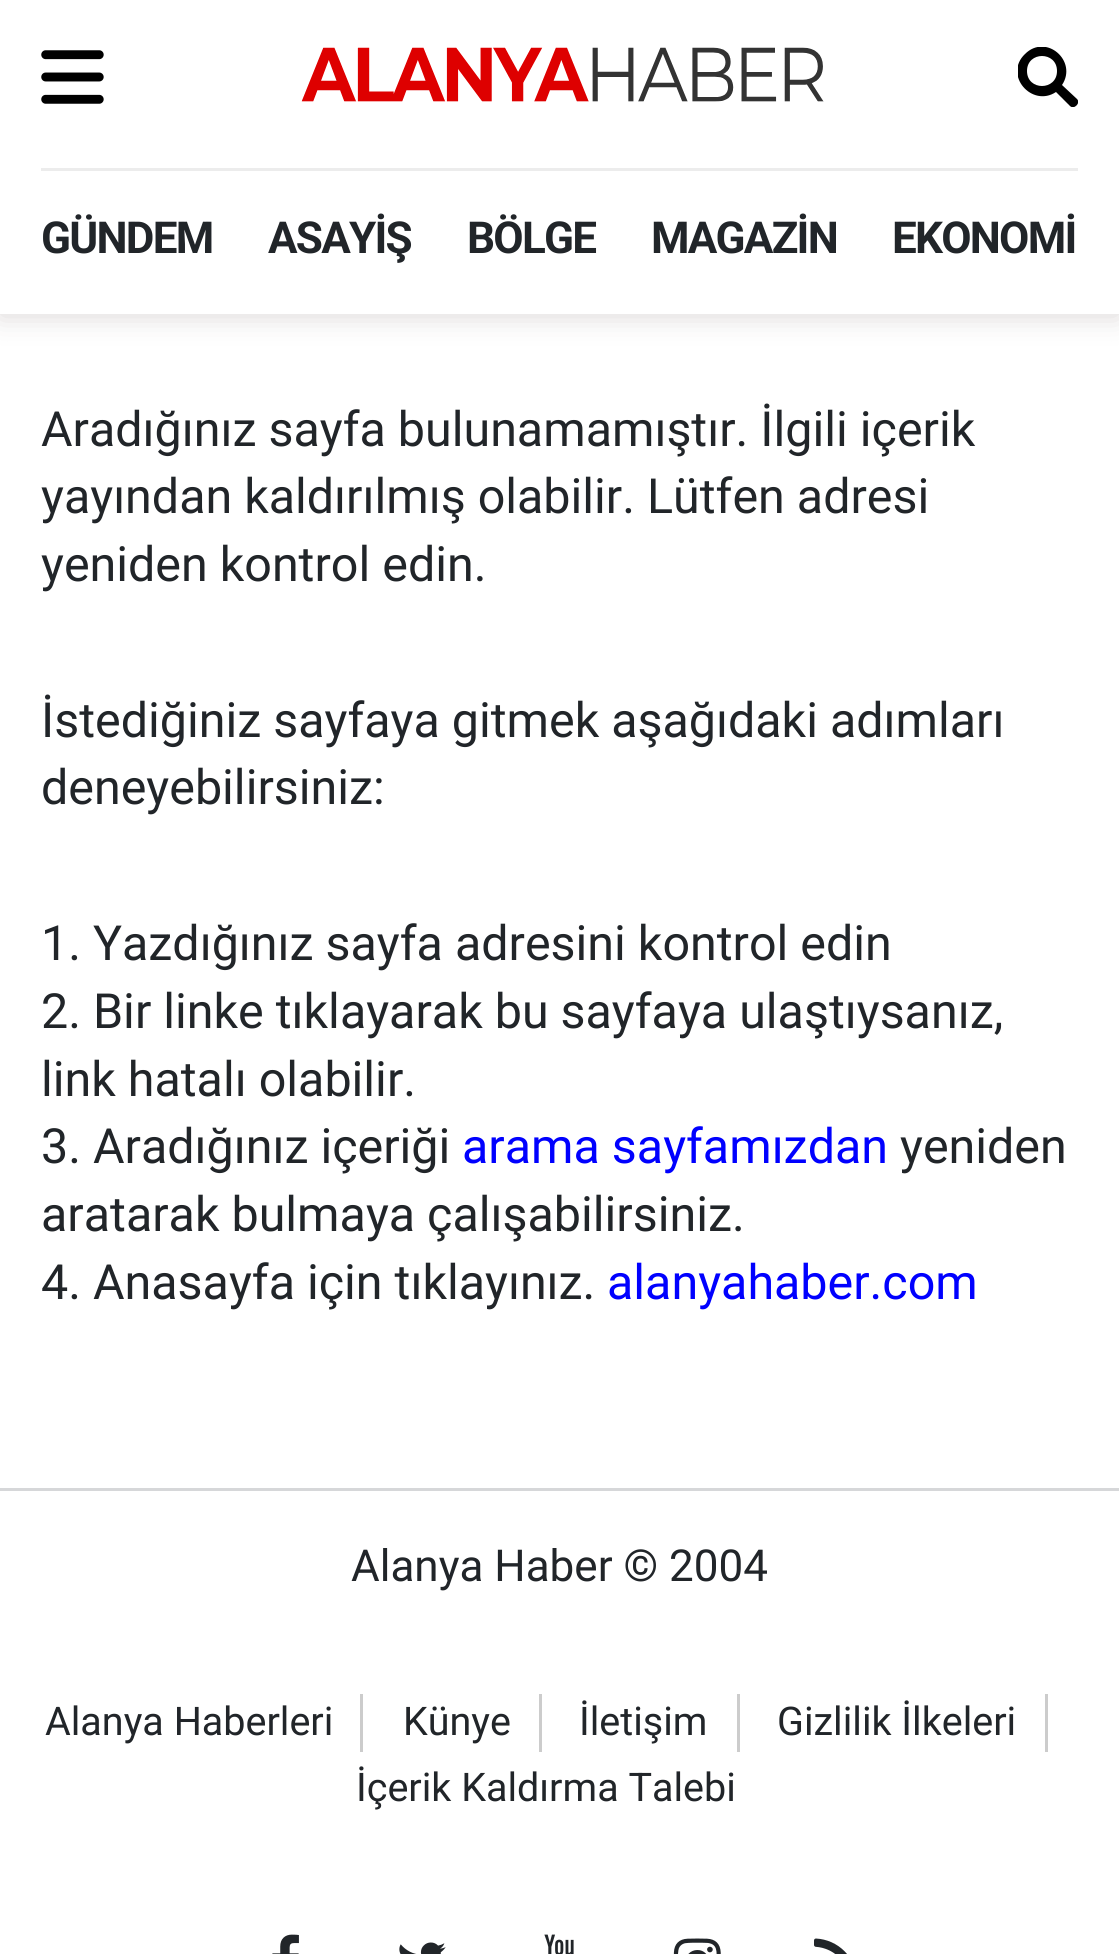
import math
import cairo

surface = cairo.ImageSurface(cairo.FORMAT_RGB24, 1119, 1954)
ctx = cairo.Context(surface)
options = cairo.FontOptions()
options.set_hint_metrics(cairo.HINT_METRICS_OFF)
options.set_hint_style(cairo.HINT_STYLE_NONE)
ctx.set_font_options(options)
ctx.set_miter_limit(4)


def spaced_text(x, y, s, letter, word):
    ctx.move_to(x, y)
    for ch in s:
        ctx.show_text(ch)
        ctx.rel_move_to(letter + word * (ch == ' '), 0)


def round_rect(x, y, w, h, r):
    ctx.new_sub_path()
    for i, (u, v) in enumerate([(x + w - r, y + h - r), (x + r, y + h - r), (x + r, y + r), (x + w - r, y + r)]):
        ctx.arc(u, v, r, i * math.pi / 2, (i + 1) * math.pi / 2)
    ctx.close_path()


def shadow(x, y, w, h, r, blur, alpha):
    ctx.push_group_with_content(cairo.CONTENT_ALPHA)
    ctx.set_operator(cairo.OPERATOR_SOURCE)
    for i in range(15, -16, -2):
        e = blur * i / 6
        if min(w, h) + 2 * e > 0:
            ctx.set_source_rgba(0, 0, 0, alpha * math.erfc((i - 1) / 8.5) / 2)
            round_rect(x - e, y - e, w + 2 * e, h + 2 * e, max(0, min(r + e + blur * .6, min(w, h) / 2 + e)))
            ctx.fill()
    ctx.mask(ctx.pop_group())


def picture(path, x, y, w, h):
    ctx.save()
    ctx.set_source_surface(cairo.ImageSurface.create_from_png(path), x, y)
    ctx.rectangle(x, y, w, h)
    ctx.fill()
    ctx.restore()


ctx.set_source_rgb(1, 1, 1)
ctx.paint()
ctx.save()
ctx.set_fill_rule(cairo.FILL_RULE_EVEN_ODD)
ctx.new_path()
ctx.move_to(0, 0)
ctx.line_to(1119, 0)
ctx.line_to(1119, 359)
ctx.line_to(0, 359)
ctx.close_path()
ctx.move_to(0, 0)
ctx.line_to(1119, 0)
ctx.line_to(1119, 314)
ctx.line_to(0, 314)
ctx.close_path()
ctx.clip()
ctx.set_source_rgb(0.812, 0.788, 0.788)
shadow(0, 3, 1119, 313, 0, 14, 0.75)
ctx.restore()
picture("img1.png", 41, 50, 63, 54)
picture("img2.png", 301, 47, 523, 55)
ctx.save()
ctx.rectangle(1018, 47, 60, 60)
ctx.clip()
ctx.set_source_rgb(0, 0, 0)
ctx.new_path()
ctx.move_to(1077, 99)
ctx.line_to(1062, 85)
ctx.curve_to(1078, 61, 1046, 33, 1025, 54)
ctx.curve_to(1003, 75, 1032, 108, 1056, 92)
ctx.line_to(1070, 106)
ctx.curve_to(1074, 110, 1081, 103, 1077, 99)
ctx.close_path()
ctx.move_to(1027, 71)
ctx.curve_to(1027, 51, 1057, 51, 1057, 71)
ctx.curve_to(1057, 91, 1027, 91, 1027, 71)
ctx.close_path()
ctx.fill()
ctx.restore()
ctx.set_source_rgb(0.925, 0.925, 0.925)
ctx.rectangle(41, 168, 1037, 3)
ctx.fill()
ctx.select_font_face("Roboto", cairo.FONT_SLANT_NORMAL, cairo.FONT_WEIGHT_BOLD)
ctx.set_font_size(44)
ctx.set_source_rgb(0.129, 0.145, 0.161)
spaced_text(41, 253, "GÜNDEM", -1.75, 0)
spaced_text(268, 253, "ASAYİŞ", -1.75, 0)
spaced_text(467, 253, "BÖLGE", -1.75, 0)
spaced_text(651, 253, "MAGAZİN", -1.75, 0)
spaced_text(892, 253, "EKONOMİ", -1.75, 0)
ctx.select_font_face("Roboto")
ctx.set_font_size(48.4)
ctx.move_to(41, 446)
ctx.show_text("Aradığınız sayfa bulunamamıştır. İlgili içerik")
ctx.move_to(41, 513)
ctx.show_text("yayından kaldırılmış olabilir. Lütfen adresi")
ctx.move_to(41, 581)
ctx.show_text("yeniden kontrol edin.")
ctx.move_to(41, 737)
ctx.show_text("İstediğiniz sayfaya gitmek aşağıdaki adımları")
ctx.move_to(41, 804)
ctx.show_text("deneyebilirsiniz:")
ctx.move_to(41, 960)
ctx.show_text("1. Yazdığınız sayfa adresini kontrol edin")
ctx.move_to(41, 1028)
ctx.show_text("2. Bir linke tıklayarak bu sayfaya ulaştıysanız,")
ctx.move_to(41, 1096)
ctx.show_text("link hatalı olabilir.")
ctx.move_to(41, 1163)
ctx.show_text("3. Aradığınız içeriği")
ctx.set_source_rgb(0, 0, 1)
ctx.move_to(462, 1163)
ctx.show_text("arama sayfamızdan")
ctx.set_source_rgb(0.129, 0.145, 0.161)
ctx.move_to(900, 1163)
ctx.show_text("yeniden")
ctx.move_to(41, 1231)
ctx.show_text("aratarak bulmaya çalışabilirsiniz.")
ctx.move_to(41, 1299)
ctx.show_text("4. Anasayfa için tıklayınız.")
ctx.set_source_rgb(0, 0, 1)
ctx.move_to(607, 1299)
ctx.show_text("alanyahaber.com")
ctx.set_source_rgb(0.839, 0.843, 0.851)
ctx.rectangle(0, 1488, 1119, 3)
ctx.fill()
ctx.set_font_size(44)
ctx.set_source_rgb(0.129, 0.145, 0.161)
ctx.move_to(351, 1581)
ctx.show_text("Alanya Haber © 2004")
ctx.set_source_rgb(0.8, 0.8, 0.8)
ctx.rectangle(360, 1694, 3, 58)
ctx.fill()
ctx.set_font_size(39.5)
ctx.set_source_rgb(0.129, 0.145, 0.161)
ctx.move_to(45, 1735)
ctx.show_text("Alanya Haberleri")
ctx.set_source_rgb(0.8, 0.8, 0.8)
ctx.rectangle(539, 1694, 3, 58)
ctx.fill()
ctx.set_source_rgb(0.129, 0.145, 0.161)
ctx.move_to(403, 1735)
ctx.show_text("Künye")
ctx.set_source_rgb(0.8, 0.8, 0.8)
ctx.rectangle(737, 1694, 3, 58)
ctx.fill()
ctx.set_source_rgb(0.129, 0.145, 0.161)
ctx.move_to(579, 1735)
ctx.show_text("İletişim")
ctx.set_source_rgb(0.8, 0.8, 0.8)
ctx.rectangle(1045, 1694, 3, 58)
ctx.fill()
ctx.set_source_rgb(0.129, 0.145, 0.161)
ctx.move_to(777, 1735)
ctx.show_text("Gizlilik İlkeleri")
ctx.move_to(356, 1801)
ctx.show_text("İçerik Kaldırma Talebi")
picture("img3.png", 272, 1934, 27, 20)
picture("img4.png", 399, 1942, 47, 12)
picture("img5.png", 544, 1934, 30, 20)
picture("img6.png", 673, 1938, 48, 16)
picture("img7.png", 814, 1938, 33, 16)
surface.write_to_png("page.png")
